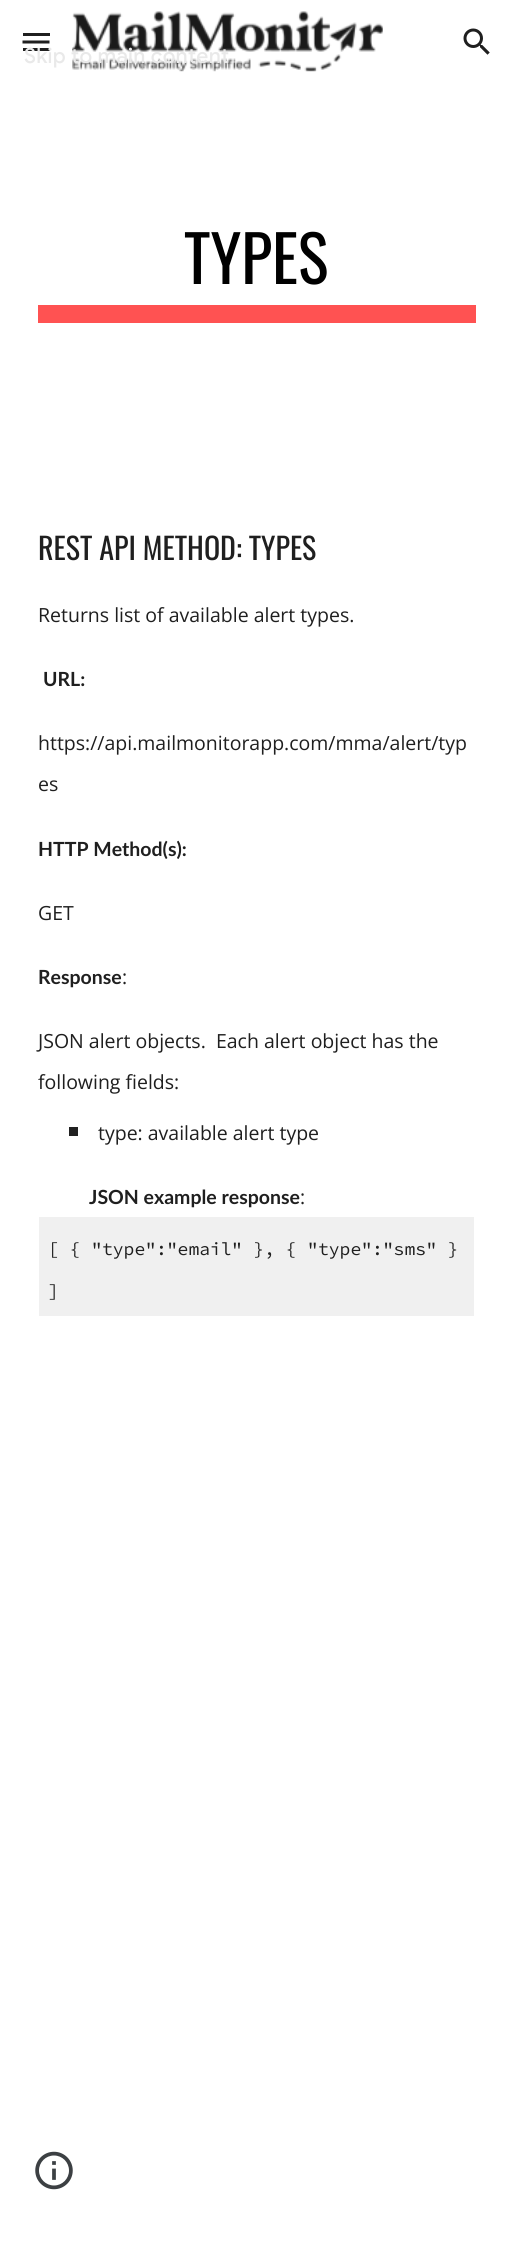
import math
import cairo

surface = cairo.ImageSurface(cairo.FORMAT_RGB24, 513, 2241)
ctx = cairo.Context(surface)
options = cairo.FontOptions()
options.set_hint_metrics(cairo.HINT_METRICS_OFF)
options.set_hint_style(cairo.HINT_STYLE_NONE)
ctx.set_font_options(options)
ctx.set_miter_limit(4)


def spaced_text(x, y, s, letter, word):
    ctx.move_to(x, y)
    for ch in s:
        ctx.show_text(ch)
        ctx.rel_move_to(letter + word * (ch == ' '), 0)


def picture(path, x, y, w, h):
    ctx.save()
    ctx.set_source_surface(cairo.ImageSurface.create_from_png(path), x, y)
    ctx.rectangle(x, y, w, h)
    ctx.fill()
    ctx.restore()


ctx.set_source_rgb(1, 1, 1)
ctx.paint()
ctx.set_source_rgb(0.122, 0.122, 0.122)
ctx.rectangle(23, 48, 27, 3)
ctx.fill()
picture("img1.png", 72, 11, 311, 61)
ctx.select_font_face("Google Sans Medium")
ctx.set_font_size(21)
ctx.set_source_rgb(0.914, 0.914, 0.914)
spaced_text(24, 63, "Skip to main content", 0.25, 0)
ctx.set_source_rgb(0.122, 0.122, 0.122)
ctx.rectangle(23, 33, 27, 3)
ctx.fill()
ctx.new_path()
ctx.move_to(22.5, 42)
ctx.line_to(49.5, 42)
ctx.set_line_width(3)
ctx.stroke()
picture("img2.png", 463, 28, 27, 27)
ctx.select_font_face("Oswald")
ctx.set_font_size(64)
ctx.set_source_rgb(0, 0, 0)
ctx.move_to(184, 284)
ctx.show_text("TYPES")
ctx.set_source_rgb(1, 0.322, 0.322)
ctx.rectangle(38, 305, 438, 18)
ctx.fill()
ctx.set_font_size(30)
ctx.set_source_rgb(0.122, 0.122, 0.122)
ctx.move_to(38, 560)
ctx.show_text("REST API METHOD: TYPES")
ctx.select_font_face("Open Sans")
ctx.set_font_size(19.5)
ctx.move_to(38, 622)
ctx.show_text("Returns list of available alert types.")
ctx.select_font_face("Lato", cairo.FONT_SLANT_NORMAL, cairo.FONT_WEIGHT_BOLD)
ctx.move_to(43, 686)
ctx.show_text("URL:")
ctx.select_font_face("Open Sans")
ctx.move_to(38, 750)
ctx.show_text("https://api.mailmonitorapp.com/mma/alert/typ")
ctx.move_to(38, 791)
ctx.show_text("es")
ctx.select_font_face("Lato", cairo.FONT_SLANT_NORMAL, cairo.FONT_WEIGHT_BOLD)
ctx.move_to(38, 856)
ctx.show_text("HTTP Method(s):")
ctx.select_font_face("Open Sans")
ctx.move_to(38, 920)
ctx.show_text("GET")
ctx.select_font_face("Lato", cairo.FONT_SLANT_NORMAL, cairo.FONT_WEIGHT_BOLD)
ctx.move_to(38, 984)
ctx.show_text("Response")
ctx.select_font_face("Open Sans")
ctx.move_to(122, 984)
ctx.show_text(":")
ctx.move_to(38, 1048)
ctx.show_text("JSON alert objects.  Each alert object has the")
ctx.move_to(38, 1089)
ctx.show_text("following fields:")
ctx.set_source_rgb(0.129, 0.129, 0.129)
ctx.rectangle(69, 1127, 9, 9)
ctx.fill()
ctx.set_source_rgb(0.122, 0.122, 0.122)
ctx.move_to(98, 1140)
ctx.show_text("type: available alert type")
ctx.select_font_face("Lato", cairo.FONT_SLANT_NORMAL, cairo.FONT_WEIGHT_BOLD)
ctx.move_to(89, 1204)
ctx.show_text("JSON example response")
ctx.select_font_face("Open Sans")
ctx.move_to(300, 1204)
ctx.show_text(":")
ctx.set_source_rgb(0.941, 0.941, 0.941)
ctx.rectangle(39, 1217, 435, 99)
ctx.fill()
ctx.select_font_face("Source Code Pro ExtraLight")
ctx.set_font_size(18)
ctx.set_source_rgb(0.122, 0.122, 0.122)
ctx.move_to(48, 1255)
ctx.show_text("[ { \"type\":\"email\" }, { \"type\":\"sms\" }")
ctx.move_to(48, 1297)
ctx.show_text("]")
picture("img3.png", 35, 2151, 38, 39)
surface.write_to_png("page.png")
